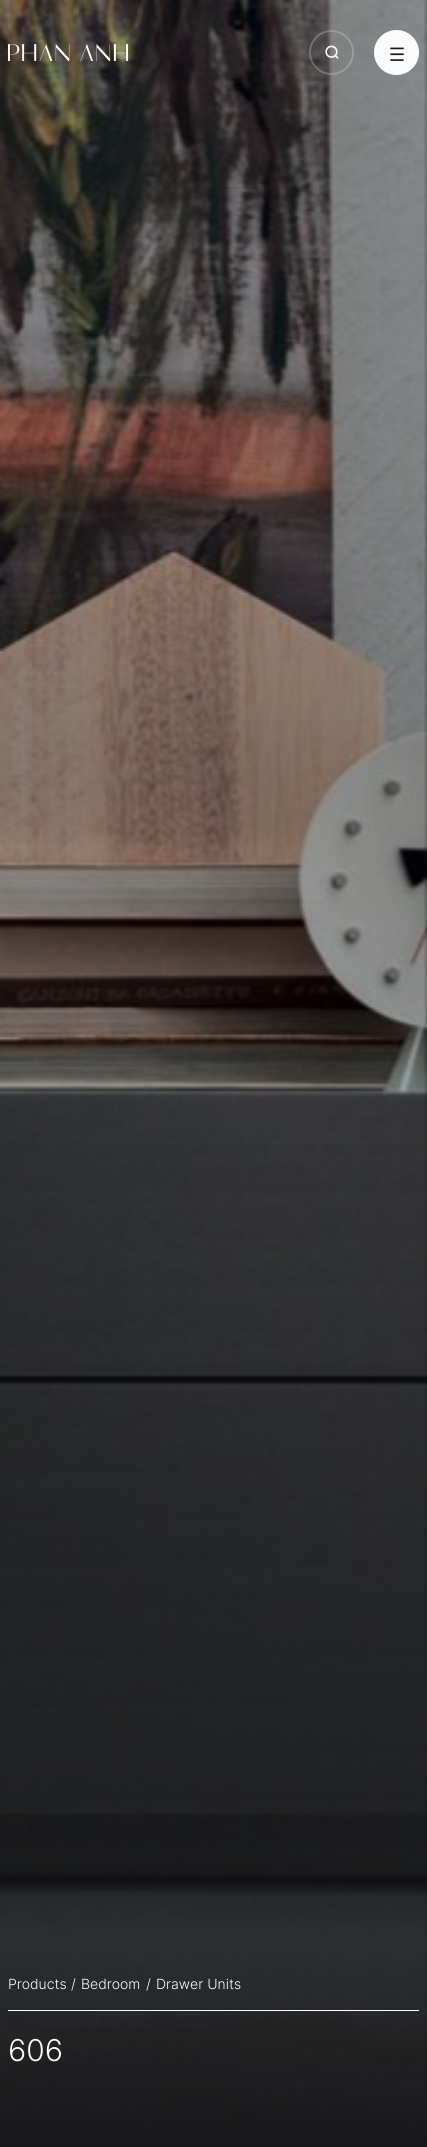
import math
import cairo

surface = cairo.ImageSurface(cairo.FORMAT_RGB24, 427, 2147)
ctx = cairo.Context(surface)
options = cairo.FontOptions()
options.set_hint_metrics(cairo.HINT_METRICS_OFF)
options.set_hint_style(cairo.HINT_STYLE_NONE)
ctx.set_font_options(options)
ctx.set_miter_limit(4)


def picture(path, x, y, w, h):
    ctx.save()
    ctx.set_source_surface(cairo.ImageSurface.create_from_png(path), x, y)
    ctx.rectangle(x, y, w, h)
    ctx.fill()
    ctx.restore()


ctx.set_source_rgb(0.063, 0.063, 0.071)
ctx.paint()
picture("img4.png", 0, 0, 427, 2143)
picture("img1.png", 8, 44, 120, 17)
ctx.arc(331.5, 52.5, 21.5, 0, 2 * math.pi)
ctx.set_source_rgba(0.855, 0.855, 0.855, 0.3)
ctx.stroke()
picture("img2.png", 325, 45, 14, 14)
ctx.set_source_rgb(0.984, 0.984, 0.984)
ctx.arc(396.5, 52.5, 22, 0, 2 * math.pi)
ctx.fill_preserve()
ctx.set_line_width(1)
ctx.stroke()
picture("img3.png", 390, 47, 14, 14)
gradient = cairo.LinearGradient(213, 1075, 214, 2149)
gradient.add_color_stop_rgba(0, 0.09, 0.09, 0.098, 0)
gradient.add_color_stop_rgba(1, 0.09, 0.09, 0.098, 1)
ctx.set_source(gradient)
ctx.rectangle(0, 1144, 427, 1003)
ctx.fill()
ctx.set_source_rgb(0.984, 0.984, 0.984)
ctx.rectangle(8, 2010, 411, 1)
ctx.fill()
ctx.select_font_face("Inter Light")
ctx.set_font_size(14)
ctx.set_source_rgb(1, 1, 1)
ctx.move_to(8, 1989)
ctx.show_text("Products")
ctx.move_to(71, 1989)
ctx.show_text("/")
ctx.move_to(81, 1989)
ctx.show_text("Bedroom")
ctx.move_to(146, 1989)
ctx.show_text("/")
ctx.move_to(156, 1989)
ctx.show_text("Drawer Units")
ctx.set_font_size(30)
ctx.move_to(8, 2061)
ctx.show_text("606")
surface.write_to_png("page.png")
